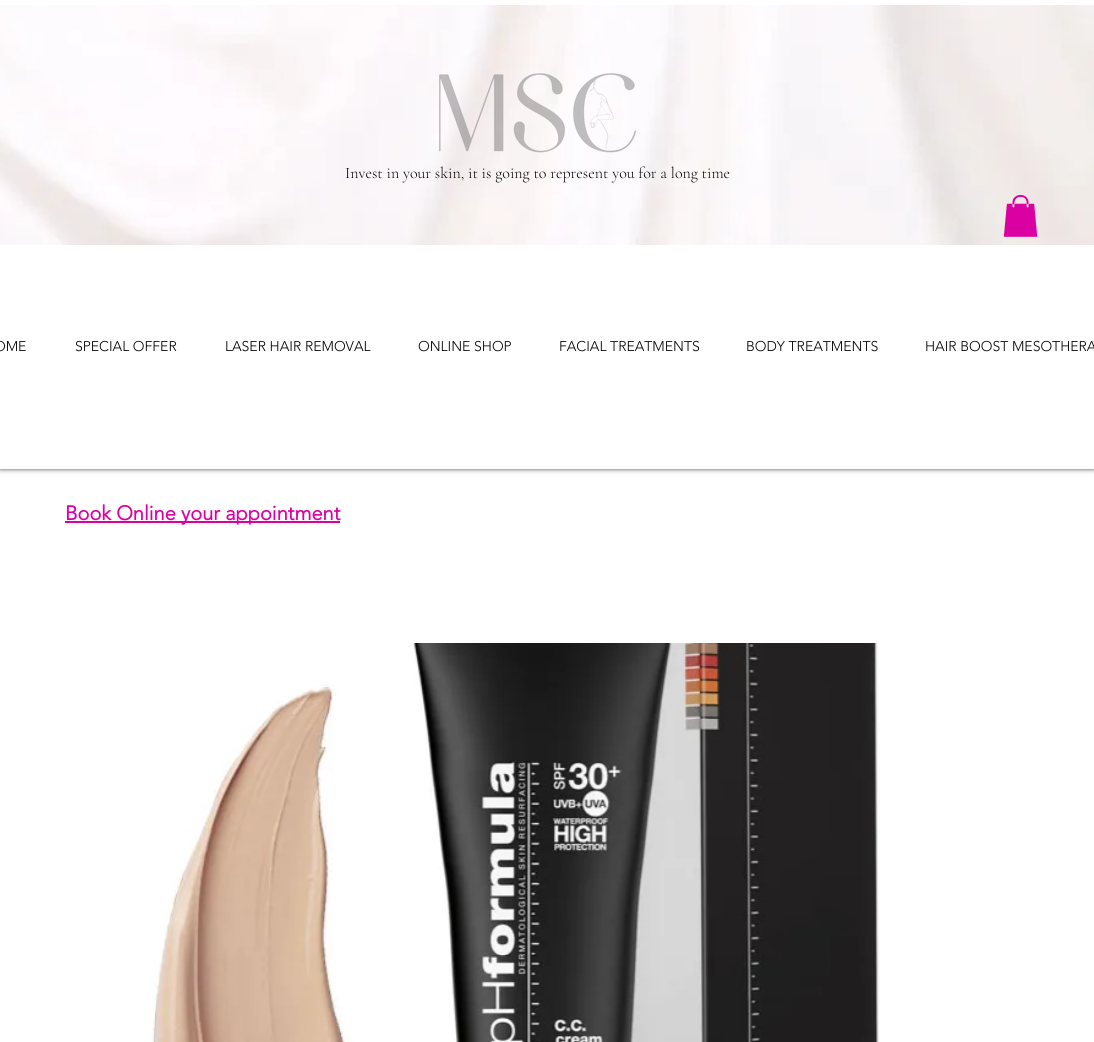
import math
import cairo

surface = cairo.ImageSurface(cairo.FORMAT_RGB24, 1094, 1042)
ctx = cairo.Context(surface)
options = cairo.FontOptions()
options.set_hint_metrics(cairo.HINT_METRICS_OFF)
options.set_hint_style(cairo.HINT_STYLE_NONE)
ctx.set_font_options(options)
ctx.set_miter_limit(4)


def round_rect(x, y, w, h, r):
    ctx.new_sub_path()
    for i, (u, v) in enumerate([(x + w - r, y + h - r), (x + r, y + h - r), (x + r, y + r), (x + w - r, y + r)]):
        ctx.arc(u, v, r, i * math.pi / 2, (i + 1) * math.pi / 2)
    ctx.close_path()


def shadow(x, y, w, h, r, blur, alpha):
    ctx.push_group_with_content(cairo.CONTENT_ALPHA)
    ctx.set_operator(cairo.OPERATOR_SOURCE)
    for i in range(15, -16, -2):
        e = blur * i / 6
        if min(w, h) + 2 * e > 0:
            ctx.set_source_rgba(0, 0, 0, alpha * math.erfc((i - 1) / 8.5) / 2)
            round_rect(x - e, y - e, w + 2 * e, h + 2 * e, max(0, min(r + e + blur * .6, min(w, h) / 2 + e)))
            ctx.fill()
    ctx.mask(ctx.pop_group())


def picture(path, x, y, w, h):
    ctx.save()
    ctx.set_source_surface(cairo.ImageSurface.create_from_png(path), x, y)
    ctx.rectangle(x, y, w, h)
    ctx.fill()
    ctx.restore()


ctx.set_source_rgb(1, 1, 1)
ctx.paint()
ctx.set_source_rgb(0, 0, 0)
shadow(0, 0, 1094, 469, 0, 2.5, 0.7)
ctx.set_source_rgb(1, 1, 1)
ctx.rectangle(0, 0, 1094, 469)
ctx.fill()
picture("img1.png", 0, 5, 1094, 240)
picture("img2.png", 439, 73, 198, 80)
ctx.select_font_face("Cormorant Garamond Light")
ctx.set_font_size(16)
ctx.set_source_rgb(0, 0, 0)
ctx.move_to(345, 178)
ctx.show_text("Invest in your skin, it is going to represent you for a long time")
picture("img3.png", 1003, 195, 35, 42)
ctx.select_font_face("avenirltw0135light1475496 Light")
ctx.set_font_size(14)
ctx.move_to(-6, 351)
ctx.show_text("OME")
ctx.move_to(75, 351)
ctx.show_text("SPECIAL OFFER")
ctx.move_to(225, 351)
ctx.show_text("LASER HAIR REMOVAL")
ctx.move_to(418, 351)
ctx.show_text("ONLINE SHOP")
ctx.move_to(559, 351)
ctx.show_text("FACIAL TREATMENTS")
ctx.move_to(746, 351)
ctx.show_text("BODY TREATMENTS")
ctx.move_to(925, 351)
ctx.show_text("HAIR BOOST MESOTHERA")
ctx.set_source_rgb(0.859, 0, 0.631)
ctx.rectangle(65, 521, 275, 2)
ctx.fill()
ctx.select_font_face("avenirltw0135light1475496", cairo.FONT_SLANT_NORMAL, cairo.FONT_WEIGHT_BOLD)
ctx.set_font_size(20)
ctx.move_to(65, 520)
ctx.show_text("Book Online your appointment")
picture("img4.png", 150, 643, 730, 399)
surface.write_to_png("page.png")
